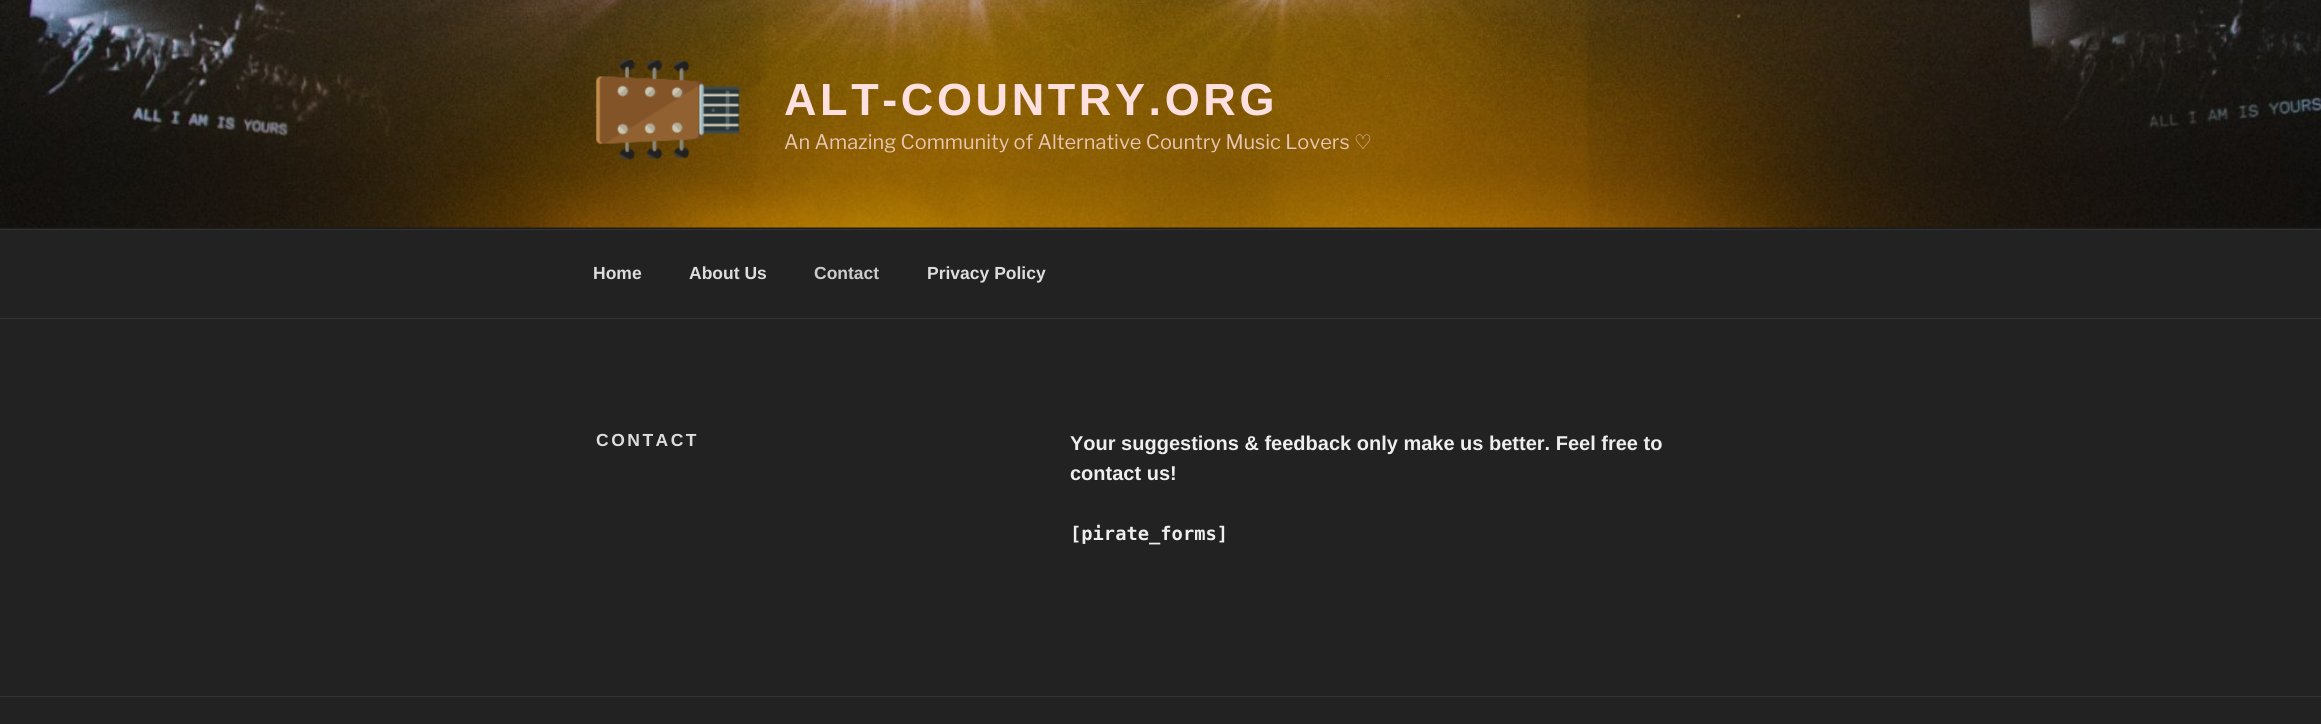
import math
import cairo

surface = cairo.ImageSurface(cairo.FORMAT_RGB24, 2321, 724)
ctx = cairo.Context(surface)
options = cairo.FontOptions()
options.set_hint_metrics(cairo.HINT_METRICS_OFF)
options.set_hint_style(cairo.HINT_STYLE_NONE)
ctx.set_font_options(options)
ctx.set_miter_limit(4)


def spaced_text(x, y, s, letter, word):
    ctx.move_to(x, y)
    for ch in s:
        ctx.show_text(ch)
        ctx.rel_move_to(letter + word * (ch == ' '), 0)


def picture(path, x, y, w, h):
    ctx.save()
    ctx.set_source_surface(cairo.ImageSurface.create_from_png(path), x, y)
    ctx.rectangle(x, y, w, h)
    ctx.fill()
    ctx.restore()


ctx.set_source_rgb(0.133, 0.133, 0.133)
ctx.paint()
ctx.set_source_rgb(0.149, 0.149, 0.149)
ctx.rectangle(0, 227, 2321, 2)
ctx.fill()
picture("img1.png", 0, 0, 2321, 228)
gradient = cairo.LinearGradient(1161, 0, 1161, 229)
gradient.add_color_stop_rgba(0, 0, 0, 0, 0)
gradient.add_color_stop_rgba(0.75, 0, 0, 0, 0.3)
gradient.add_color_stop_rgba(1, 0, 0, 0, 0.3)
ctx.set_source(gradient)
ctx.rectangle(0, 12, 2321, 217)
ctx.fill()
picture("img2.png", 596, 60, 144, 100)
ctx.select_font_face("Liberation Sans", cairo.FONT_SLANT_NORMAL, cairo.FONT_WEIGHT_BOLD)
ctx.set_font_size(45)
ctx.set_source_rgb(1, 0.878, 0.878)
spaced_text(784, 115, "ALT-COUNTRY.ORG", 3.6, 0)
ctx.select_font_face("Libre Franklin Thin")
ctx.set_font_size(20)
ctx.set_source_rgb(0.91, 0.776, 0.706)
ctx.move_to(784, 149)
ctx.show_text("An Amazing Community of Alternative Country Music Lovers")
ctx.select_font_face("DejaVu Sans")
ctx.move_to(1354, 149)
ctx.show_text("♡")
ctx.set_source_rgb(0.2, 0.2, 0.2)
ctx.rectangle(0, 229, 2321, 1)
ctx.fill()
ctx.rectangle(0, 318, 2321, 1)
ctx.fill()
ctx.select_font_face("Liberation Sans", cairo.FONT_SLANT_NORMAL, cairo.FONT_WEIGHT_BOLD)
ctx.set_font_size(17.5)
ctx.set_source_rgb(0.867, 0.867, 0.867)
ctx.move_to(593, 279)
ctx.show_text("Home")
ctx.move_to(689, 279)
ctx.show_text("About Us")
ctx.set_source_rgb(0.8, 0.8, 0.8)
ctx.move_to(814, 279)
ctx.show_text("Contact")
ctx.set_source_rgb(0.867, 0.867, 0.867)
ctx.move_to(927, 279)
ctx.show_text("Privacy Policy")
spaced_text(596, 446, "CONTACT", 2.5, 0)
ctx.set_font_size(20)
ctx.set_source_rgb(0.933, 0.933, 0.933)
ctx.move_to(1070, 450)
ctx.show_text("Your suggestions & feedback only make us better. Feel free to")
ctx.move_to(1070, 480)
ctx.show_text("contact us!")
ctx.select_font_face("DejaVu Sans Mono", cairo.FONT_SLANT_NORMAL, cairo.FONT_WEIGHT_BOLD)
ctx.set_font_size(18.75)
ctx.move_to(1070, 540)
ctx.show_text("[pirate_forms]")
ctx.set_source_rgb(0.2, 0.2, 0.2)
ctx.rectangle(0, 696, 2321, 1)
ctx.fill()
surface.write_to_png("page.png")
